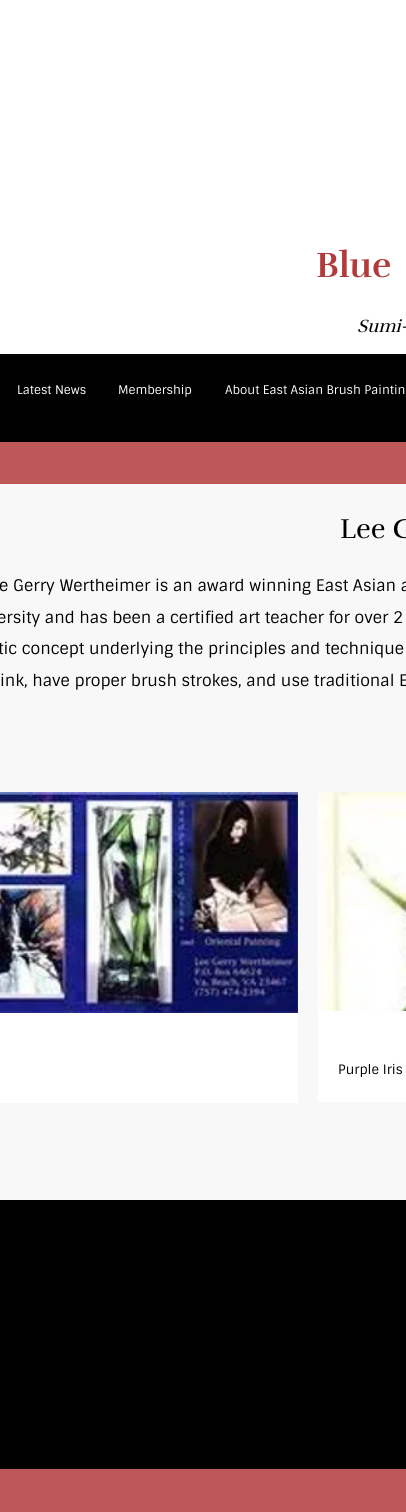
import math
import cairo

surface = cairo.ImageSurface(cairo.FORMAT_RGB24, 406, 1512)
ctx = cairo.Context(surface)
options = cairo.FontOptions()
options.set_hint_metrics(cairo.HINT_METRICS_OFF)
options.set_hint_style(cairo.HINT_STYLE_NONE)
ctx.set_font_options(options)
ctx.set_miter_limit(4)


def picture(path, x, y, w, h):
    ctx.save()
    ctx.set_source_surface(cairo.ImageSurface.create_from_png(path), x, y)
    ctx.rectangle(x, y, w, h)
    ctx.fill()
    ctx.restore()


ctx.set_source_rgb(0.745, 0.345, 0.345)
ctx.paint()
ctx.set_source_rgb(1, 1, 1)
ctx.rectangle(0, 0, 406, 354)
ctx.fill()
ctx.select_font_face("Rufina", cairo.FONT_SLANT_NORMAL, cairo.FONT_WEIGHT_BOLD)
ctx.set_font_size(36)
ctx.set_source_rgb(0.698, 0.227, 0.227)
ctx.move_to(316, 277)
ctx.show_text("Blue")
ctx.select_font_face("Rufina", cairo.FONT_SLANT_ITALIC)
ctx.set_font_size(18)
ctx.set_source_rgb(0, 0, 0)
ctx.move_to(357, 332)
ctx.show_text("Sumi-")
ctx.rectangle(0, 354, 406, 88)
ctx.fill()
ctx.select_font_face("Sintony")
ctx.set_font_size(12)
ctx.set_source_rgb(1, 1, 1)
ctx.move_to(17, 394)
ctx.show_text("Latest News")
ctx.move_to(118, 394)
ctx.show_text("Membership")
ctx.move_to(225, 394)
ctx.show_text("About East Asian Brush Paintin")
ctx.set_source_rgb(0.969, 0.969, 0.969)
ctx.rectangle(0, 484, 406, 716)
ctx.fill()
ctx.select_font_face("Rufina")
ctx.set_font_size(28)
ctx.set_source_rgb(0, 0, 0)
ctx.move_to(340, 538)
ctx.show_text("Lee G")
ctx.select_font_face("Sintony")
ctx.set_font_size(16)
ctx.move_to(-1, 591)
ctx.show_text("e Gerry Wertheimer is an award winning East Asian a")
ctx.move_to(-3, 623)
ctx.show_text("ersity and has been a certified art teacher for over 2")
ctx.move_to(-2, 654)
ctx.show_text("tic concept underlying the principles and technique")
ctx.move_to(0, 686)
ctx.show_text("ink, have proper brush strokes, and use traditional E")
picture("img1.png", 0, 792, 298, 221)
ctx.set_source_rgb(1, 1, 1)
ctx.rectangle(0, 1013, 298, 90)
ctx.fill()
ctx.rectangle(318, 1011, 88, 91)
ctx.fill()
picture("img2.png", 318, 792, 88, 219)
ctx.set_font_size(13)
ctx.set_source_rgb(0, 0, 0)
ctx.move_to(338, 1074)
ctx.show_text("Purple Iris")
ctx.rectangle(0, 1200, 406, 269)
ctx.fill()
surface.write_to_png("page.png")
